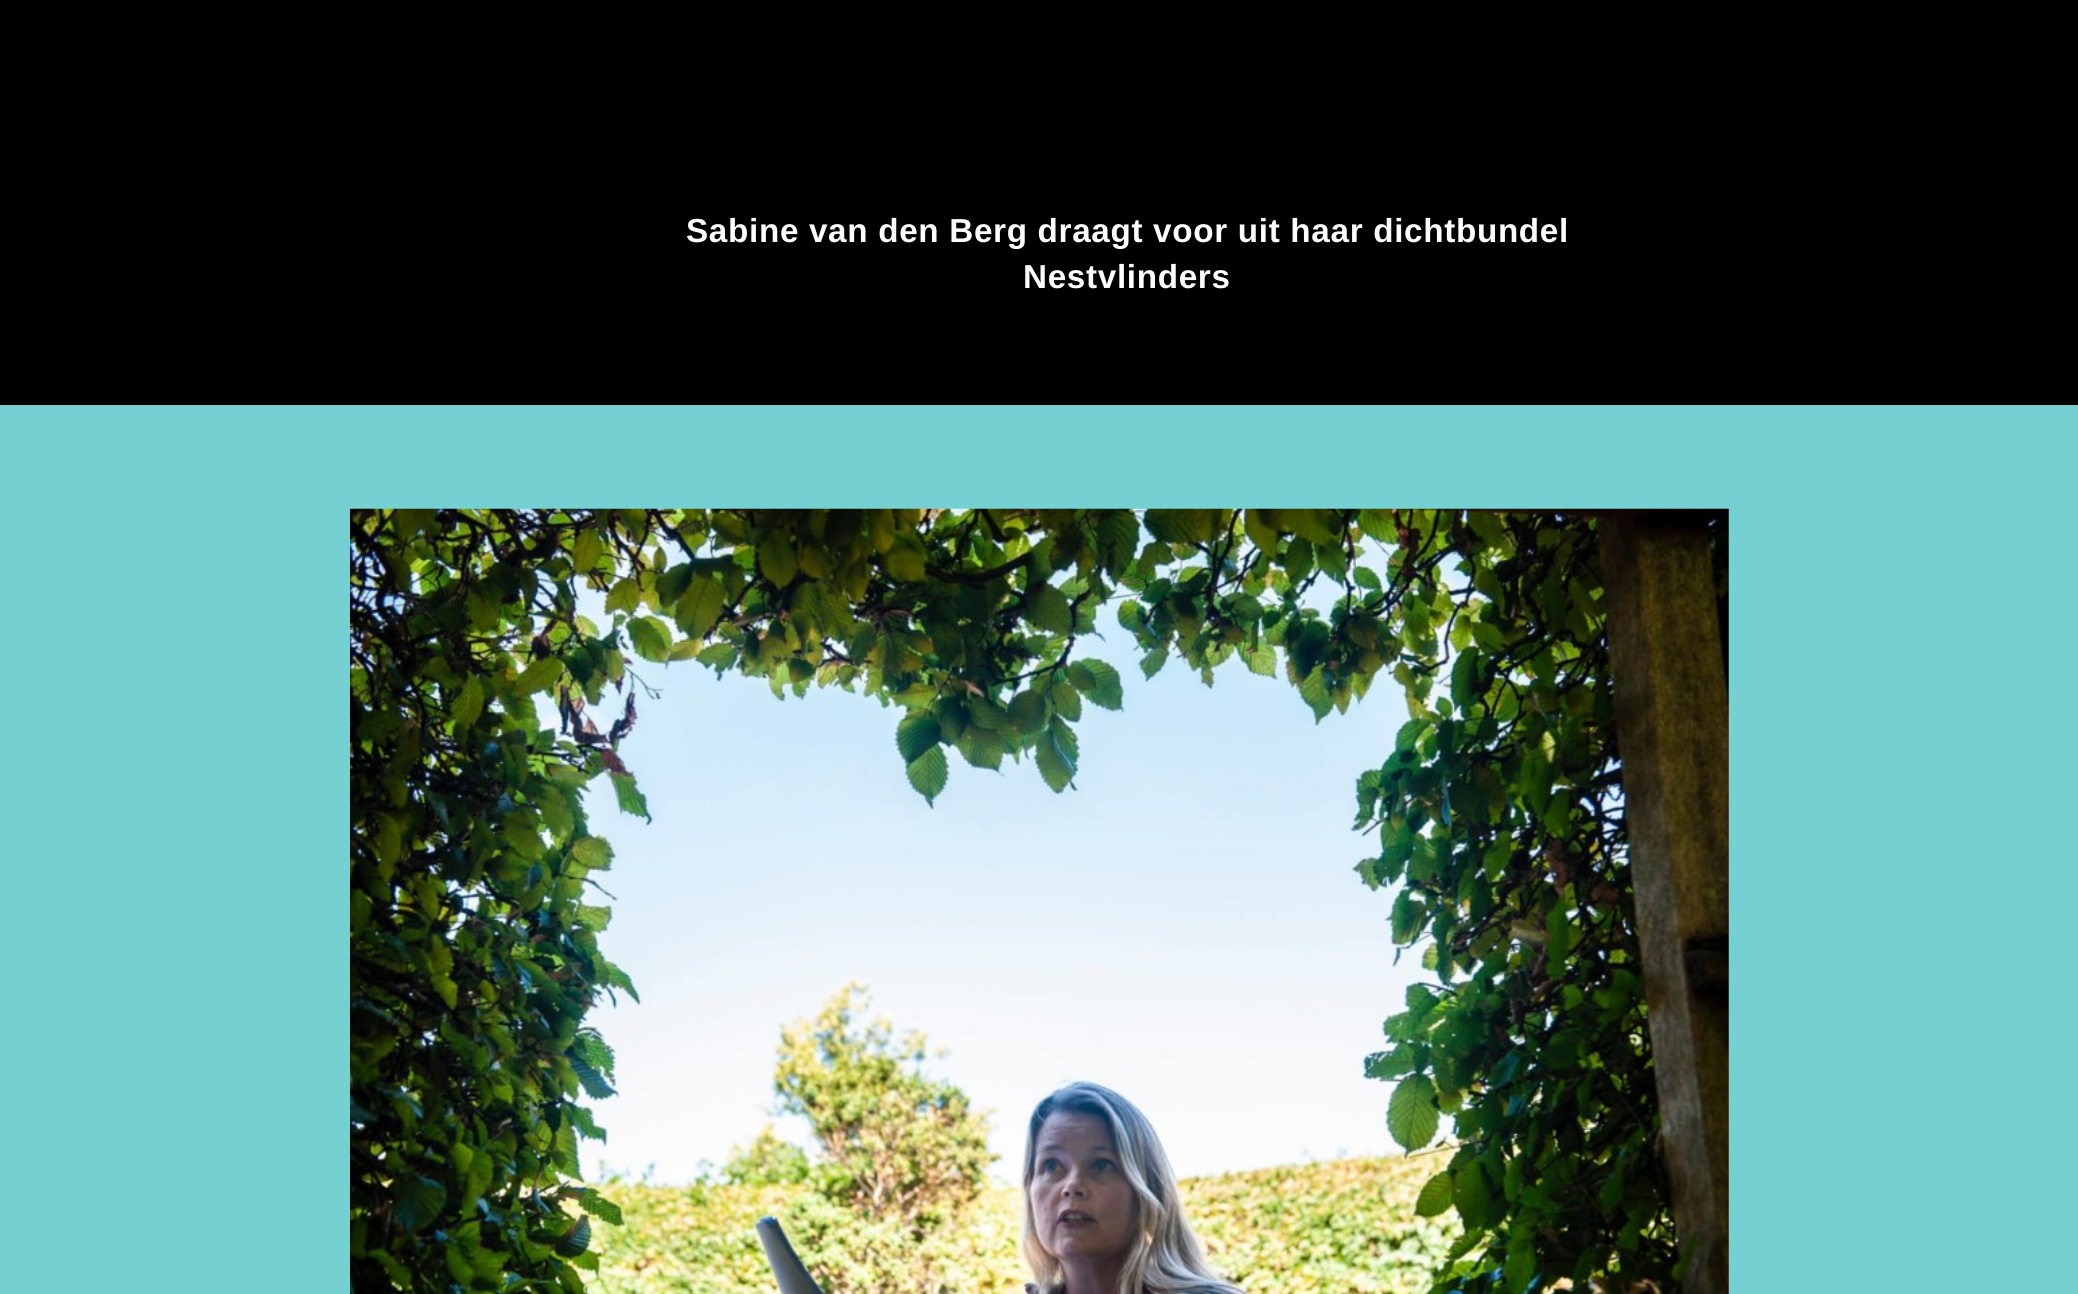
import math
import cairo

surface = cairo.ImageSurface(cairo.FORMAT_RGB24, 2078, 1294)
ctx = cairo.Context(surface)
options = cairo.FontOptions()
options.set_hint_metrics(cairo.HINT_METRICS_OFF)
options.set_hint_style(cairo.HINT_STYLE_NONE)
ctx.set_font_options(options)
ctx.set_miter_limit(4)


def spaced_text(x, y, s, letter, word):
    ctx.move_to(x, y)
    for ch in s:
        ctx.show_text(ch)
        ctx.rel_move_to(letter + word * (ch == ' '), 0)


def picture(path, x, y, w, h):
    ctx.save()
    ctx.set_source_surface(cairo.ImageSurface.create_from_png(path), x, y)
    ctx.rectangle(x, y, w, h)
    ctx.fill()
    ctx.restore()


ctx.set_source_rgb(0, 0, 0)
ctx.paint()
ctx.select_font_face("Liberation Sans", cairo.FONT_SLANT_NORMAL, cairo.FONT_WEIGHT_BOLD)
ctx.set_font_size(33.25)
ctx.set_source_rgb(1, 1, 1)
spaced_text(686, 242, "Sabine van den Berg draagt voor uit haar dichtbundel", 0.67, 0)
spaced_text(1023, 288, "Nestvlinders", 0.67, 0)
ctx.set_source_rgb(0.459, 0.82, 0.82)
ctx.rectangle(0, 405, 2078, 889)
ctx.fill()
picture("img1.png", 350, 508, 1379, 786)
surface.write_to_png("page.png")
